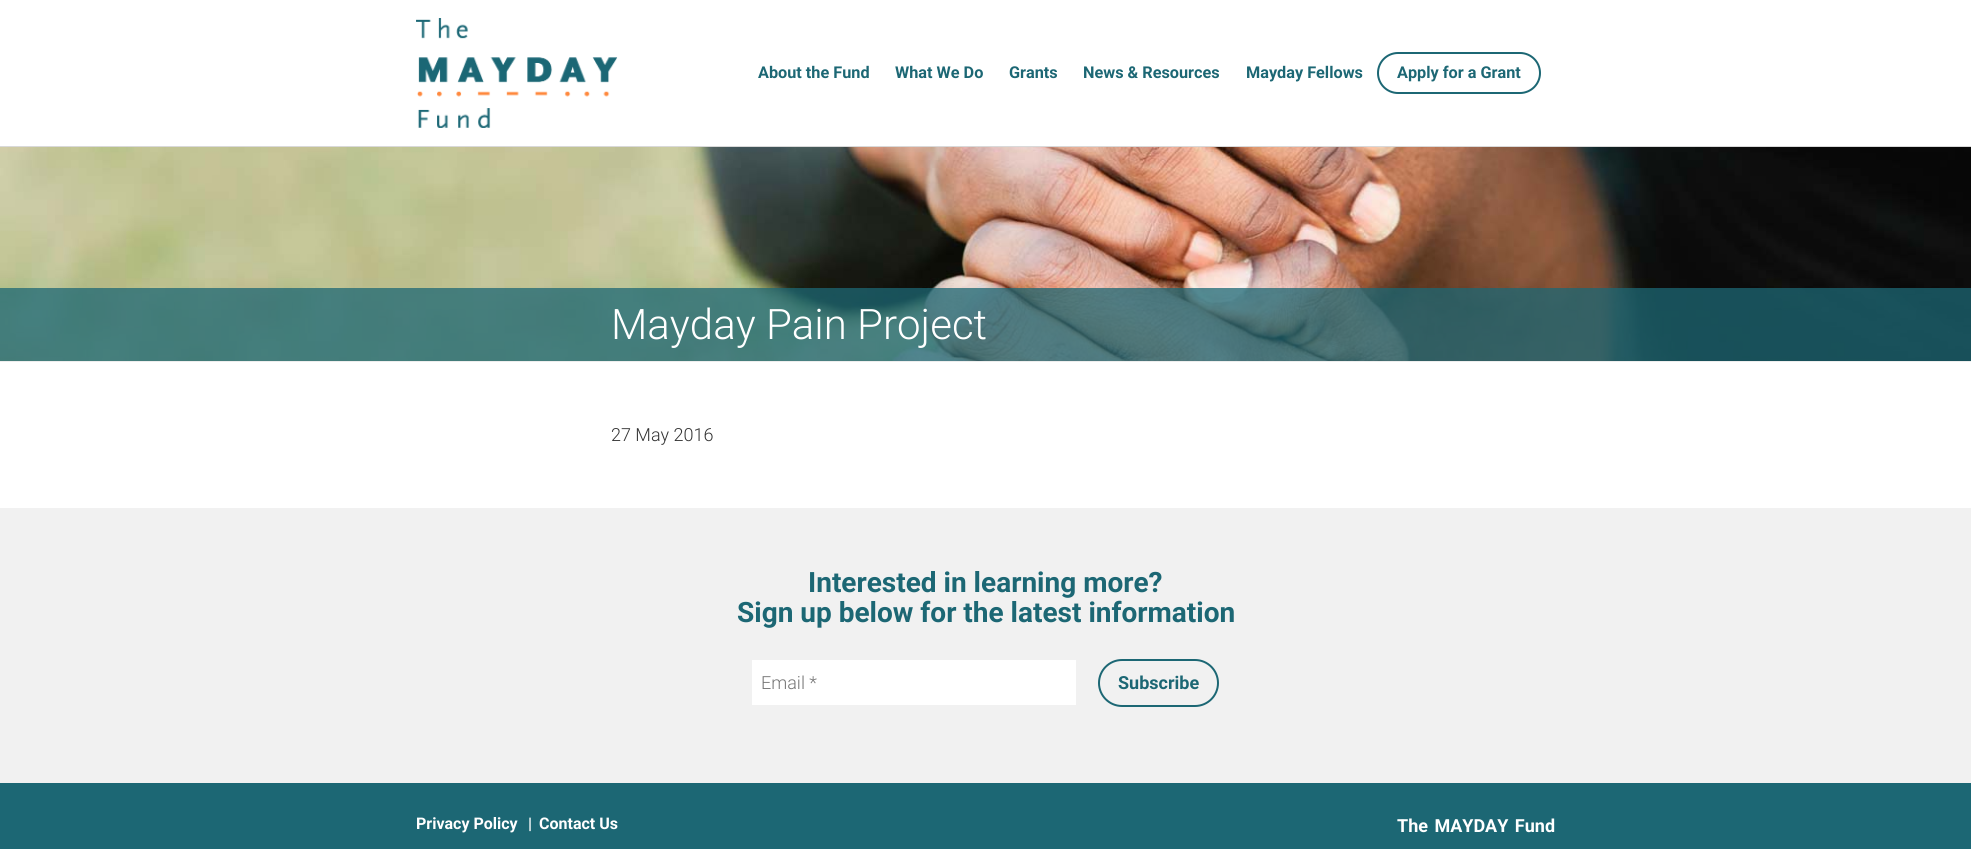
import math
import cairo

surface = cairo.ImageSurface(cairo.FORMAT_RGB24, 1971, 849)
ctx = cairo.Context(surface)
options = cairo.FontOptions()
options.set_hint_metrics(cairo.HINT_METRICS_OFF)
options.set_hint_style(cairo.HINT_STYLE_NONE)
ctx.set_font_options(options)
ctx.set_miter_limit(4)


def spaced_text(x, y, s, letter, word):
    ctx.move_to(x, y)
    for ch in s:
        ctx.show_text(ch)
        ctx.rel_move_to(letter + word * (ch == ' '), 0)


def round_rect(x, y, w, h, r):
    ctx.new_sub_path()
    for i, (u, v) in enumerate([(x + w - r, y + h - r), (x + r, y + h - r), (x + r, y + r), (x + w - r, y + r)]):
        ctx.arc(u, v, r, i * math.pi / 2, (i + 1) * math.pi / 2)
    ctx.close_path()


def picture(path, x, y, w, h):
    ctx.save()
    ctx.set_source_surface(cairo.ImageSurface.create_from_png(path), x, y)
    ctx.rectangle(x, y, w, h)
    ctx.fill()
    ctx.restore()


ctx.set_source_rgb(1, 1, 1)
ctx.paint()
ctx.set_source_rgb(0.851, 0.851, 0.851)
ctx.rectangle(0, 146, 1971, 1)
ctx.fill()
picture("img1.png", 416, 18, 202, 110)
ctx.select_font_face("Roboto", cairo.FONT_SLANT_NORMAL, cairo.FONT_WEIGHT_BOLD)
ctx.set_font_size(16.25)
ctx.set_source_rgb(0.11, 0.404, 0.455)
ctx.move_to(758, 78)
ctx.show_text("About the Fund")
ctx.move_to(895, 78)
ctx.show_text("What We Do")
ctx.move_to(1009, 78)
ctx.show_text("Grants")
ctx.move_to(1083, 78)
ctx.show_text("News & Resources")
ctx.move_to(1246, 78)
ctx.show_text("Mayday Fellows")
round_rect(1378, 53, 162, 40, 20)
ctx.stroke()
ctx.move_to(1397, 78)
ctx.show_text("Apply for a Grant")
ctx.set_source_rgb(0.933, 0.933, 0.933)
ctx.rectangle(0, 361, 1971, 1)
ctx.fill()
picture("img2.png", 0, 147, 1971, 214)
ctx.set_source_rgba(0.11, 0.404, 0.455, 0.75)
ctx.rectangle(0, 288, 1971, 73)
ctx.fill()
ctx.select_font_face("Roboto Light")
ctx.set_font_size(42)
ctx.set_source_rgb(1, 1, 1)
ctx.move_to(611, 339)
ctx.show_text("Mayday Pain Project")
ctx.set_font_size(18)
ctx.set_source_rgb(0.2, 0.2, 0.2)
ctx.move_to(611, 441)
ctx.show_text("27 May 2016")
ctx.set_source_rgb(0.945, 0.945, 0.945)
ctx.rectangle(0, 508, 1971, 275)
ctx.fill()
ctx.select_font_face("Roboto", cairo.FONT_SLANT_NORMAL, cairo.FONT_WEIGHT_BOLD)
ctx.set_font_size(28)
ctx.set_source_rgb(0.11, 0.404, 0.455)
ctx.move_to(808, 592)
ctx.show_text("Interested in learning more?")
ctx.move_to(737, 622)
ctx.show_text("Sign up below for the latest information")
ctx.set_source_rgb(1, 1, 1)
ctx.rectangle(752, 660, 324, 45)
ctx.fill()
ctx.select_font_face("Roboto Light")
ctx.set_font_size(18)
ctx.set_source_rgb(0.459, 0.459, 0.459)
ctx.move_to(761, 689)
ctx.show_text("Email *")
round_rect(1099, 660, 119, 46, 23)
ctx.set_source_rgb(0.11, 0.404, 0.455)
ctx.stroke()
ctx.select_font_face("Roboto", cairo.FONT_SLANT_NORMAL, cairo.FONT_WEIGHT_BOLD)
ctx.move_to(1118, 689)
ctx.show_text("Subscribe")
ctx.rectangle(0, 783, 1971, 66)
ctx.fill()
ctx.set_font_size(16)
ctx.set_source_rgb(1, 1, 1)
ctx.move_to(416, 829)
ctx.show_text("Privacy Policy")
ctx.move_to(528, 829)
ctx.show_text("|")
ctx.move_to(539, 829)
ctx.show_text("Contact Us")
ctx.set_font_size(18)
spaced_text(1397, 832, "The MAYDAY Fund", 0, 2)
surface.write_to_png("page.png")
